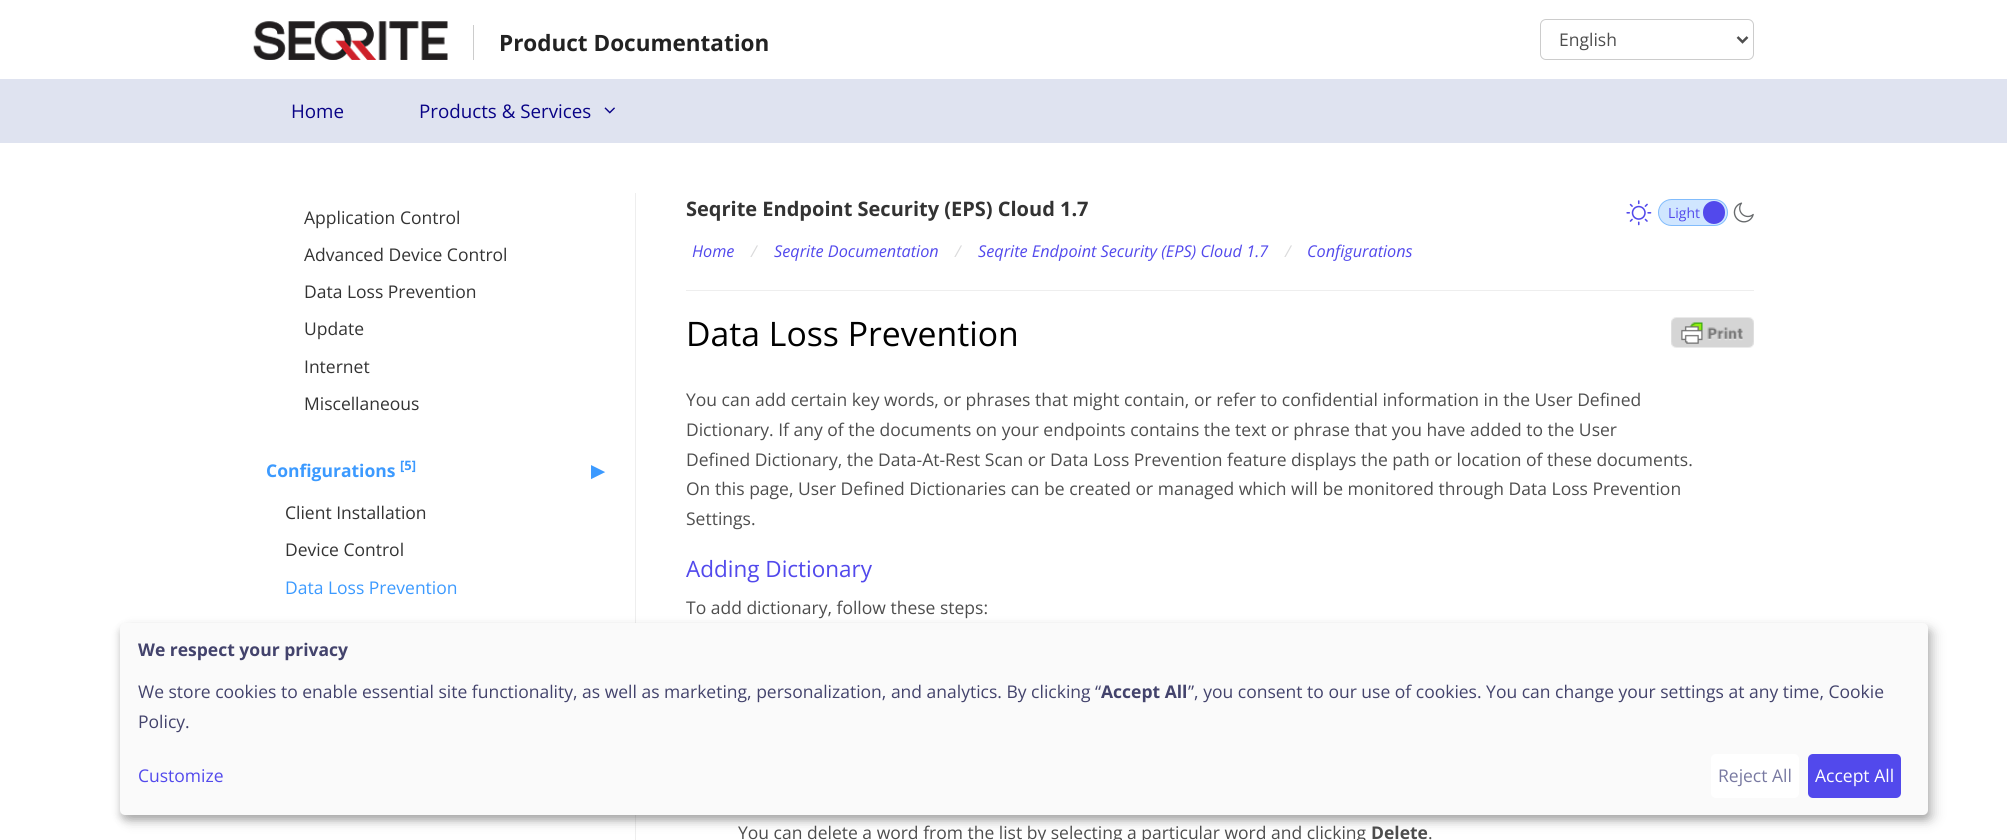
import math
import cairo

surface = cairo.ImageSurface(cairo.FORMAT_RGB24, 2007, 840)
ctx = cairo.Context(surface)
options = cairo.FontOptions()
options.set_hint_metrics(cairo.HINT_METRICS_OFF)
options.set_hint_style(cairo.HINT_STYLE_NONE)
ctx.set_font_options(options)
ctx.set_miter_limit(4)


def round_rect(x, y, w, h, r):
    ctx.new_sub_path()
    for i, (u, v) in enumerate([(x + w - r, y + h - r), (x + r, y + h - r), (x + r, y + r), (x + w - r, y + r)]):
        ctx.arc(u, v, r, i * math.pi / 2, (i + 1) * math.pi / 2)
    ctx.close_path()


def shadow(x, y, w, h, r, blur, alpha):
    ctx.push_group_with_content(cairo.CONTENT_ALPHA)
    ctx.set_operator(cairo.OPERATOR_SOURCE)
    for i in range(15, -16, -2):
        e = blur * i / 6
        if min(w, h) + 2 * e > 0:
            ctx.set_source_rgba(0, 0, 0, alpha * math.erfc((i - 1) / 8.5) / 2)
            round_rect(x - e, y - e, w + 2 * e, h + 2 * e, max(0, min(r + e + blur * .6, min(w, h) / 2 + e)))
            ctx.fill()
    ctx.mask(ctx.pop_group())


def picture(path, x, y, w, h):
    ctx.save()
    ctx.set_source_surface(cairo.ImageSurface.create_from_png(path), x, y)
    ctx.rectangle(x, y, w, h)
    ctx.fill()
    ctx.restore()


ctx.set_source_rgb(1, 1, 1)
ctx.paint()
picture("img1.png", 253, 21, 195, 39)
ctx.set_source_rgb(0.8, 0.8, 0.8)
ctx.rectangle(473, 25, 1, 35)
ctx.fill()
ctx.select_font_face("Open Sans", cairo.FONT_SLANT_NORMAL, cairo.FONT_WEIGHT_BOLD)
ctx.set_font_size(22.5)
ctx.set_source_rgb(0.133, 0.133, 0.133)
ctx.move_to(499, 51)
ctx.show_text("Product Documentation")
round_rect(1540.5, 19.5, 213, 40, 5.5)
ctx.set_source_rgb(0.8, 0.8, 0.8)
ctx.set_line_width(1)
ctx.stroke()
ctx.new_path()
ctx.move_to(1737.5, 37)
ctx.line_to(1742.5, 42)
ctx.line_to(1747.5, 37)
ctx.set_source_rgb(0.306, 0.306, 0.306)
ctx.set_line_width(2.5)
ctx.stroke()
ctx.select_font_face("Open Sans")
ctx.set_font_size(17.5)
ctx.move_to(1559, 46)
ctx.show_text("English")
ctx.set_source_rgb(0.875, 0.89, 0.941)
ctx.rectangle(0, 79, 2007, 64)
ctx.fill()
ctx.set_font_size(18.75)
ctx.set_source_rgb(0.035, 0.008, 0.525)
ctx.move_to(291, 118)
ctx.show_text("Home")
ctx.move_to(419, 118)
ctx.show_text("Products & Services")
picture("img2.png", 604, 107, 11, 7)
ctx.set_source_rgb(0.933, 0.933, 0.933)
ctx.rectangle(635, 193, 1, 647)
ctx.fill()
ctx.set_font_size(17.5)
ctx.set_source_rgb(0.2, 0.2, 0.2)
ctx.move_to(304, 224)
ctx.show_text("Application Control")
ctx.move_to(304, 261)
ctx.show_text("Advanced Device Control")
ctx.move_to(304, 298)
ctx.show_text("Data Loss Prevention")
ctx.move_to(304, 335)
ctx.show_text("Update")
ctx.move_to(304, 373)
ctx.show_text("Internet")
ctx.move_to(304, 410)
ctx.show_text("Miscellaneous")
ctx.select_font_face("Open Sans", cairo.FONT_SLANT_NORMAL, cairo.FONT_WEIGHT_BOLD)
ctx.set_source_rgb(0.235, 0.604, 1)
ctx.move_to(266, 477)
ctx.show_text("Configurations")
ctx.set_font_size(13)
ctx.move_to(400, 470)
ctx.show_text("[5]")
ctx.select_font_face("DejaVu Sans", cairo.FONT_SLANT_NORMAL, cairo.FONT_WEIGHT_BOLD)
ctx.set_font_size(26)
ctx.save()
ctx.translate(605, 479)
ctx.rotate(-90 * math.pi / 180)
ctx.move_to(0, 0)
ctx.show_text("▾")
ctx.restore()
ctx.select_font_face("Open Sans")
ctx.set_font_size(17.5)
ctx.set_source_rgb(0.2, 0.2, 0.2)
ctx.move_to(285, 519)
ctx.show_text("Client Installation")
ctx.move_to(285, 556)
ctx.show_text("Device Control")
ctx.set_source_rgb(0.235, 0.604, 1)
ctx.move_to(285, 594)
ctx.show_text("Data Loss Prevention")
ctx.set_source_rgb(0.933, 0.933, 0.933)
ctx.rectangle(686, 290, 1068, 1)
ctx.fill()
ctx.select_font_face("Open Sans", cairo.FONT_SLANT_NORMAL, cairo.FONT_WEIGHT_BOLD)
ctx.set_font_size(20)
ctx.set_source_rgb(0.2, 0.2, 0.2)
ctx.move_to(686, 216)
ctx.show_text("Seqrite Endpoint Security (EPS) Cloud 1.7")
ctx.select_font_face("Open Sans", cairo.FONT_SLANT_ITALIC)
ctx.set_font_size(16.25)
ctx.set_source_rgb(0.322, 0.286, 0.922)
ctx.move_to(692, 257)
ctx.show_text("Home")
ctx.set_source_rgb(0.855, 0.855, 0.859)
ctx.move_to(751, 257)
ctx.show_text("/")
ctx.set_source_rgb(0.322, 0.286, 0.922)
ctx.move_to(774, 257)
ctx.show_text("Seqrite Documentation")
ctx.set_source_rgb(0.855, 0.855, 0.859)
ctx.move_to(955, 257)
ctx.show_text("/")
ctx.set_source_rgb(0.322, 0.286, 0.922)
ctx.move_to(978, 257)
ctx.show_text("Seqrite Endpoint Security (EPS) Cloud 1.7")
ctx.set_source_rgb(0.855, 0.855, 0.859)
ctx.move_to(1285, 257)
ctx.show_text("/")
ctx.set_source_rgb(0.322, 0.286, 0.922)
ctx.move_to(1307, 257)
ctx.show_text("Configurations")
ctx.select_font_face("Open Sans")
ctx.set_font_size(33.75)
ctx.set_source_rgb(0, 0, 0)
ctx.move_to(686, 346)
ctx.show_text("Data Loss Prevention")
picture("img3.png", 1671, 317, 83, 31)
ctx.set_font_size(17.5)
ctx.set_source_rgb(0.306, 0.306, 0.306)
ctx.move_to(686, 406)
ctx.show_text("You can add certain key words, or phrases that might contain, or refer to confidential information in the User Defined")
ctx.move_to(686, 436)
ctx.show_text("Dictionary. If any of the documents on your endpoints contains the text or phrase that you have added to the User")
ctx.move_to(686, 466)
ctx.show_text("Defined Dictionary, the Data-At-Rest Scan or Data Loss Prevention feature displays the path or location of these documents.")
ctx.move_to(686, 495)
ctx.show_text("On this page, User Defined Dictionaries can be created or managed which will be monitored through Data Loss Prevention")
ctx.move_to(686, 525)
ctx.show_text("Settings.")
ctx.set_font_size(22.5)
ctx.set_source_rgb(0.322, 0.286, 0.922)
ctx.move_to(686, 577)
ctx.show_text("Adding Dictionary")
ctx.set_font_size(17.5)
ctx.set_source_rgb(0.306, 0.306, 0.306)
ctx.move_to(686, 614)
ctx.show_text("To add dictionary, follow these steps:")
ctx.move_to(738, 839)
ctx.show_text("You can delete a word from the list by selecting a particular word and clicking")
ctx.select_font_face("Open Sans", cairo.FONT_SLANT_NORMAL, cairo.FONT_WEIGHT_BOLD)
ctx.move_to(1371, 839)
ctx.show_text("Delete")
ctx.select_font_face("Open Sans")
ctx.move_to(1428, 839)
ctx.show_text(".")
picture("img4.png", 1626, 200, 26, 26)
ctx.set_source_rgb(0.816, 0.902, 1)
round_rect(1658.5, 199.5, 69, 26, 13)
ctx.fill_preserve()
ctx.set_source_rgb(0.506, 0.737, 0.988)
ctx.set_line_width(1)
ctx.stroke()
ctx.set_font_size(14)
ctx.set_source_rgb(0.322, 0.286, 0.922)
ctx.move_to(1668, 218)
ctx.show_text("Light")
round_rect(1703, 201, 22, 23, 11)
ctx.fill()
picture("img5.png", 1733, 202, 21, 21)
ctx.set_source_rgb(0, 0, 0)
shadow(126, 629, 1808, 192, 5, 6, 0.19)
shadow(120, 628, 1808, 192, 5, 4, 0.2)
ctx.set_source_rgb(0.98, 0.98, 0.98)
round_rect(120, 623, 1808, 192, 5)
ctx.fill()
ctx.select_font_face("Open Sans", cairo.FONT_SLANT_NORMAL, cairo.FONT_WEIGHT_BOLD)
ctx.set_font_size(17.5)
ctx.set_source_rgb(0.263, 0.263, 0.424)
ctx.move_to(138, 656)
ctx.show_text("We respect your privacy")
ctx.select_font_face("Open Sans")
ctx.move_to(138, 698)
ctx.show_text("We store cookies to enable essential site functionality, as well as marketing, personalization, and analytics. By clicking “")
ctx.select_font_face("Open Sans", cairo.FONT_SLANT_NORMAL, cairo.FONT_WEIGHT_BOLD)
ctx.move_to(1101, 698)
ctx.show_text("Accept All")
ctx.select_font_face("Open Sans")
ctx.move_to(1188, 698)
ctx.show_text("”, you consent to our use of cookies. You can change your settings at any time, Cookie")
ctx.move_to(138, 728)
ctx.show_text("Policy.")
ctx.set_source_rgb(0.322, 0.286, 0.922)
ctx.move_to(138, 782)
ctx.show_text("Customize")
ctx.set_source_rgb(1, 1, 1)
round_rect(1711, 754, 88, 44, 5)
ctx.fill()
ctx.set_source_rgb(0.471, 0.475, 0.631)
ctx.move_to(1718, 782)
ctx.show_text("Reject All")
ctx.set_source_rgb(0.322, 0.286, 0.922)
round_rect(1808, 754, 93, 44, 5)
ctx.fill()
ctx.set_source_rgb(1, 1, 1)
ctx.move_to(1815, 782)
ctx.show_text("Accept All")
surface.write_to_png("page.png")
